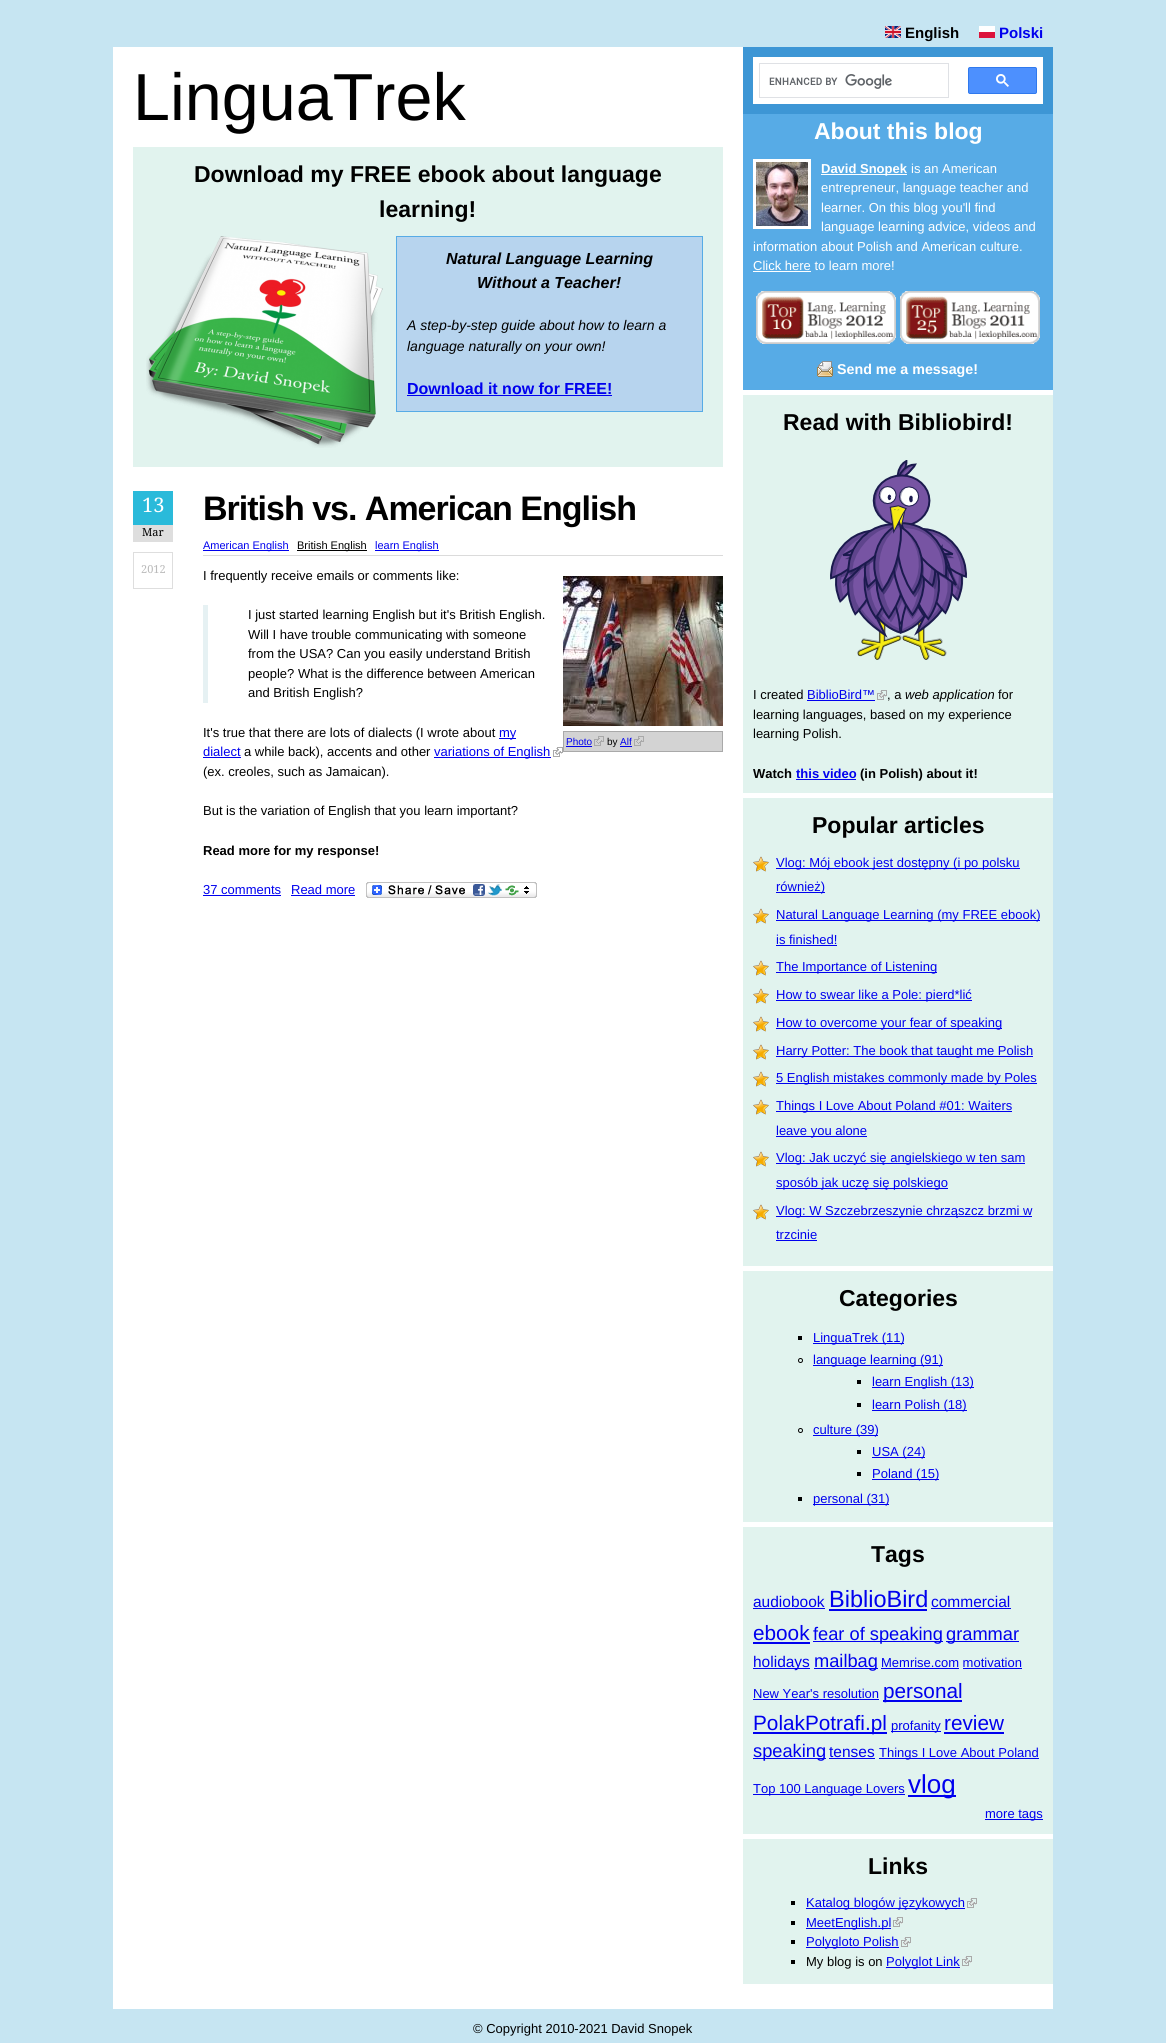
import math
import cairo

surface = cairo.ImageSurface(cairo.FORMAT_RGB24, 1166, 2043)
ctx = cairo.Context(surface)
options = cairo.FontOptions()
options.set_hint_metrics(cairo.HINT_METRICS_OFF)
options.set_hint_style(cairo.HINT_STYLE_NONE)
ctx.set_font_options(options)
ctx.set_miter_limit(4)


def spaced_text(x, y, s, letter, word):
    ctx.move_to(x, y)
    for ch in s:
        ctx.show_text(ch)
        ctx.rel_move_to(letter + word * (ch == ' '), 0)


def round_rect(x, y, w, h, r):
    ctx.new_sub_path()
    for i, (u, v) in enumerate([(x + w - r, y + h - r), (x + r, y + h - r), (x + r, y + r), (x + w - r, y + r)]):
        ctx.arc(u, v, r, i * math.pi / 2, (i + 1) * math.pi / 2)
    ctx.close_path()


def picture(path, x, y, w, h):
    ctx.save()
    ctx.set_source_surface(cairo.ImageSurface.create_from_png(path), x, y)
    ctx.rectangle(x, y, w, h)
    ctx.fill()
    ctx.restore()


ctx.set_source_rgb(0.776, 0.898, 0.949)
ctx.paint()
ctx.set_source_rgb(1, 1, 1)
ctx.rectangle(113, 47, 940, 1962)
ctx.fill()
ctx.select_font_face("Liberation Sans")
ctx.set_font_size(66.5)
ctx.set_source_rgb(0, 0, 0)
ctx.move_to(133, 120)
ctx.show_text("LinguaTrek")
ctx.set_source_rgb(0.882, 0.953, 0.933)
ctx.rectangle(133, 147, 590, 320)
ctx.fill()
ctx.select_font_face("Liberation Sans", cairo.FONT_SLANT_NORMAL, cairo.FONT_WEIGHT_BOLD)
ctx.set_font_size(23)
ctx.set_source_rgb(0, 0, 0)
ctx.move_to(194, 182)
ctx.show_text("Download my FREE ebook about language")
ctx.move_to(379, 217)
ctx.show_text("learning!")
picture("img1.png", 146, 236, 237, 212)
ctx.set_source_rgb(0.718, 0.831, 0.933)
ctx.rectangle(396.5, 236.5, 306, 175)
ctx.fill_preserve()
ctx.set_source_rgb(0.341, 0.671, 0.902)
ctx.set_line_width(1)
ctx.stroke()
ctx.select_font_face("Liberation Sans", cairo.FONT_SLANT_ITALIC, cairo.FONT_WEIGHT_BOLD)
ctx.set_font_size(16)
ctx.set_source_rgb(0, 0, 0)
ctx.move_to(446, 264)
ctx.show_text("Natural Language Learning")
ctx.move_to(477, 288)
ctx.show_text("Without a Teacher!")
ctx.select_font_face("Liberation Sans", cairo.FONT_SLANT_ITALIC)
ctx.set_font_size(14)
ctx.move_to(407, 330)
ctx.show_text("A step-by-step guide about how to learn a")
ctx.move_to(407, 351)
ctx.show_text("language naturally on your own!")
ctx.select_font_face("Liberation Sans", cairo.FONT_SLANT_NORMAL, cairo.FONT_WEIGHT_BOLD)
ctx.set_font_size(16)
ctx.set_source_rgb(0, 0, 0.933)
ctx.move_to(407, 394)
ctx.show_text("Download it now for FREE!")
ctx.rectangle(407, 395, 205, 1)
ctx.fill()
ctx.set_source_rgb(0.165, 0.729, 0.855)
ctx.rectangle(133, 491, 40, 34)
ctx.fill()
ctx.select_font_face("Noto Serif")
ctx.set_font_size(20)
ctx.set_source_rgb(1, 1, 1)
ctx.move_to(142, 512)
ctx.show_text("13")
ctx.set_source_rgb(0.871, 0.871, 0.871)
ctx.rectangle(133, 525, 40, 17)
ctx.fill()
ctx.set_font_size(11)
ctx.set_source_rgb(0, 0, 0)
ctx.move_to(142, 536)
ctx.show_text("Mar")
ctx.rectangle(133.5, 552.5, 39, 36)
ctx.set_source_rgb(0.871, 0.871, 0.871)
ctx.stroke()
ctx.set_source_rgb(0.729, 0.729, 0.729)
ctx.move_to(141, 573)
ctx.show_text("2012")
ctx.select_font_face("Liberation Sans", cairo.FONT_SLANT_NORMAL, cairo.FONT_WEIGHT_BOLD)
ctx.set_font_size(34)
ctx.set_source_rgb(0, 0, 0)
spaced_text(203, 520, "British vs. American English", -1, 0)
ctx.set_source_rgb(0, 0, 0.933)
ctx.rectangle(203, 550, 86, 1)
ctx.fill()
ctx.select_font_face("Liberation Sans")
ctx.set_font_size(11)
ctx.move_to(203, 549)
ctx.show_text("American English")
ctx.set_source_rgb(0, 0, 0)
ctx.rectangle(297, 550, 70, 1)
ctx.fill()
ctx.move_to(297, 549)
ctx.show_text("British English")
ctx.set_source_rgb(0, 0, 0.933)
ctx.rectangle(375, 550, 64, 1)
ctx.fill()
ctx.move_to(375, 549)
ctx.show_text("learn English")
ctx.set_source_rgb(0.859, 0.859, 0.859)
ctx.rectangle(203, 555, 520, 1)
ctx.fill()
ctx.set_font_size(13)
ctx.set_source_rgb(0, 0, 0)
ctx.move_to(203, 580)
ctx.show_text("I frequently receive emails or comments like:")
ctx.set_source_rgb(0.902, 0.945, 0.953)
ctx.rectangle(203, 605, 5, 98)
ctx.fill()
ctx.set_source_rgb(0, 0, 0)
ctx.move_to(248, 619)
ctx.show_text("I just started learning English but it's British English.")
ctx.move_to(248, 639)
ctx.show_text("Will I have trouble communicating with someone")
ctx.move_to(248, 658)
ctx.show_text("from the USA? Can you easily understand British")
ctx.move_to(248, 678)
ctx.show_text("people? What is the difference between American")
ctx.move_to(248, 697)
ctx.show_text("and British English?")
ctx.move_to(203, 737)
ctx.show_text("It's true that there are lots of dialects (I wrote about")
ctx.set_source_rgb(0, 0, 0.933)
ctx.rectangle(499, 738, 17, 1)
ctx.fill()
ctx.move_to(499, 737)
ctx.show_text("my")
ctx.move_to(203, 756)
ctx.show_text("dialect")
ctx.rectangle(203, 757, 38, 1)
ctx.fill()
ctx.set_source_rgb(0, 0, 0)
ctx.move_to(244, 756)
ctx.show_text("a while back), accents and other")
ctx.set_source_rgb(0, 0, 0.933)
ctx.rectangle(434, 757, 117, 1)
ctx.fill()
ctx.move_to(434, 756)
ctx.show_text("variations of English")
picture("img2.png", 553, 747, 10, 10)
ctx.set_source_rgb(0, 0, 0)
ctx.move_to(203, 776)
ctx.show_text("(ex. creoles, such as Jamaican).")
picture("img3.png", 563, 576, 160, 150)
ctx.set_source_rgb(0.827, 0.827, 0.827)
ctx.rectangle(563.5, 731.5, 159, 20)
ctx.fill_preserve()
ctx.set_source_rgb(0.663, 0.663, 0.663)
ctx.stroke()
ctx.set_font_size(10)
ctx.set_source_rgb(0, 0, 0.933)
ctx.move_to(566, 745)
ctx.show_text("Photo")
ctx.rectangle(566, 746, 26, 1)
ctx.fill()
picture("img4.png", 594, 736, 10, 10)
ctx.set_source_rgb(0, 0, 0)
ctx.move_to(607, 745)
ctx.show_text("by")
ctx.set_source_rgb(0, 0, 0.933)
ctx.move_to(620, 745)
ctx.show_text("Alf")
ctx.rectangle(620, 746, 12, 1)
ctx.fill()
picture("img4.png", 634, 736, 10, 10)
ctx.set_font_size(13)
ctx.set_source_rgb(0, 0, 0)
ctx.move_to(203, 815)
ctx.show_text("But is the variation of English that you learn important?")
ctx.select_font_face("Liberation Sans", cairo.FONT_SLANT_NORMAL, cairo.FONT_WEIGHT_BOLD)
ctx.move_to(203, 855)
ctx.show_text("Read more for my response!")
ctx.select_font_face("Liberation Sans")
ctx.set_source_rgb(0, 0, 0.933)
ctx.move_to(203, 894)
ctx.show_text("37 comments")
ctx.rectangle(203, 895, 78, 1)
ctx.fill()
ctx.move_to(291, 894)
ctx.show_text("Read more")
ctx.rectangle(291, 895, 64, 1)
ctx.fill()
picture("img5.png", 366, 882, 171, 16)
picture("img6.png", 885, 26, 16, 12)
ctx.select_font_face("Liberation Sans", cairo.FONT_SLANT_NORMAL, cairo.FONT_WEIGHT_BOLD)
ctx.set_font_size(15)
ctx.set_source_rgb(0, 0, 0)
ctx.move_to(905, 38)
ctx.show_text("English")
picture("img7.png", 979, 26, 16, 12)
ctx.set_source_rgb(0, 0, 0.933)
ctx.move_to(999, 38)
ctx.show_text("Polski")
ctx.set_source_rgb(0.239, 0.588, 0.835)
ctx.rectangle(743, 47, 310, 67)
ctx.fill()
ctx.set_source_rgb(1, 1, 1)
ctx.rectangle(753, 57, 290, 47)
ctx.fill()
ctx.rectangle(759.5, 63.5, 189, 34)
ctx.set_source_rgb(0.875, 0.882, 0.898)
ctx.stroke()
picture("img8.png", 769, 74, 123, 15)
ctx.set_source_rgb(0.302, 0.565, 0.996)
round_rect(968.5, 67.5, 68, 26, 1.5)
ctx.fill_preserve()
ctx.set_source_rgb(0.188, 0.475, 0.929)
ctx.stroke()
picture("img9.png", 996, 74, 13, 13)
ctx.set_source_rgb(0.341, 0.671, 0.902)
ctx.rectangle(743, 114, 310, 276)
ctx.fill()
ctx.set_font_size(23)
ctx.set_source_rgb(1, 1, 1)
ctx.move_to(814, 139)
ctx.show_text("About this blog")
ctx.rectangle(754.5, 160.5, 55, 67)
ctx.set_line_width(3)
ctx.stroke()
picture("img10.png", 756, 162, 52, 64)
ctx.rectangle(821, 174, 86, 1)
ctx.fill()
ctx.set_font_size(13)
ctx.move_to(821, 173)
ctx.show_text("David Snopek")
ctx.select_font_face("Liberation Sans")
ctx.move_to(911, 173)
ctx.show_text("is an American")
ctx.move_to(821, 192)
ctx.show_text("entrepreneur, language teacher and")
ctx.move_to(821, 212)
ctx.show_text("learner. On this blog you'll find")
ctx.move_to(821, 231)
ctx.show_text("language learning advice, videos and")
ctx.move_to(753, 251)
ctx.show_text("information about Polish and American culture.")
ctx.move_to(753, 270)
ctx.show_text("Click here to learn more!")
ctx.rectangle(753, 271, 58, 1)
ctx.fill()
picture("img11.png", 756, 291, 140, 53)
picture("img12.png", 900, 291, 140, 53)
picture("img13.png", 817, 361, 16, 16)
ctx.select_font_face("Liberation Sans", cairo.FONT_SLANT_NORMAL, cairo.FONT_WEIGHT_BOLD)
ctx.set_font_size(14.25)
ctx.move_to(837, 374)
ctx.show_text("Send me a message!")
ctx.set_source_rgb(0.882, 0.953, 0.933)
ctx.rectangle(743, 395, 310, 398)
ctx.fill()
ctx.set_font_size(23)
ctx.set_source_rgb(0, 0, 0)
ctx.move_to(783, 430)
ctx.show_text("Read with Bibliobird!")
picture("img14.png", 830, 460, 137, 200)
ctx.select_font_face("Liberation Sans")
ctx.set_font_size(13)
ctx.move_to(753, 699)
ctx.show_text("I created")
ctx.set_source_rgb(0, 0, 0.933)
ctx.move_to(807, 699)
ctx.show_text("BiblioBird™")
ctx.rectangle(807, 700, 68, 1)
ctx.fill()
picture("img15.png", 877, 690, 10, 10)
ctx.set_source_rgb(0, 0, 0)
ctx.move_to(887, 699)
ctx.show_text(", a")
ctx.select_font_face("Liberation Sans", cairo.FONT_SLANT_ITALIC)
ctx.move_to(905, 699)
ctx.show_text("web application")
ctx.select_font_face("Liberation Sans")
ctx.move_to(998, 699)
ctx.show_text("for")
ctx.move_to(753, 719)
ctx.show_text("learning languages, based on my experience")
ctx.move_to(753, 738)
ctx.show_text("learning Polish.")
ctx.select_font_face("Liberation Sans", cairo.FONT_SLANT_NORMAL, cairo.FONT_WEIGHT_BOLD)
ctx.move_to(753, 778)
ctx.show_text("Watch")
ctx.set_source_rgb(0, 0, 0.933)
ctx.move_to(796, 778)
ctx.show_text("this video")
ctx.rectangle(796, 779, 60, 1)
ctx.fill()
ctx.set_source_rgb(0, 0, 0)
ctx.move_to(860, 778)
ctx.show_text("(in Polish) about it!")
ctx.set_source_rgb(0.882, 0.953, 0.933)
ctx.rectangle(743, 798, 310, 468)
ctx.fill()
ctx.set_font_size(23)
ctx.set_source_rgb(0, 0, 0)
ctx.move_to(812, 833)
ctx.show_text("Popular articles")
picture("img16.png", 753, 856, 16, 16)
ctx.set_source_rgb(0, 0, 0.933)
ctx.rectangle(776, 868, 244, 1)
ctx.fill()
ctx.select_font_face("Liberation Sans")
ctx.set_font_size(13)
ctx.move_to(776, 867)
ctx.show_text("Vlog: Mój ebook jest dostępny (i po polsku")
ctx.rectangle(776, 892, 49, 1)
ctx.fill()
ctx.move_to(776, 891)
ctx.show_text("również)")
picture("img16.png", 753, 908, 16, 16)
ctx.rectangle(776, 920, 264, 1)
ctx.fill()
ctx.move_to(776, 919)
ctx.show_text("Natural Language Learning (my FREE ebook)")
ctx.move_to(776, 944)
ctx.show_text("is finished!")
ctx.rectangle(776, 945, 61, 1)
ctx.fill()
picture("img16.png", 753, 960, 16, 16)
ctx.rectangle(776, 972, 161, 1)
ctx.fill()
ctx.move_to(776, 971)
ctx.show_text("The Importance of Listening")
picture("img16.png", 753, 988, 16, 16)
ctx.rectangle(776, 1000, 196, 1)
ctx.fill()
ctx.move_to(776, 999)
ctx.show_text("How to swear like a Pole: pierd*lić")
picture("img16.png", 753, 1016, 16, 16)
ctx.rectangle(776, 1028, 226, 1)
ctx.fill()
ctx.move_to(776, 1027)
ctx.show_text("How to overcome your fear of speaking")
picture("img16.png", 753, 1044, 16, 16)
ctx.rectangle(776, 1056, 257, 1)
ctx.fill()
ctx.move_to(776, 1055)
ctx.show_text("Harry Potter: The book that taught me Polish")
picture("img16.png", 753, 1071, 16, 16)
ctx.rectangle(776, 1083, 261, 1)
ctx.fill()
ctx.move_to(776, 1082)
ctx.show_text("5 English mistakes commonly made by Poles")
picture("img16.png", 753, 1099, 16, 16)
ctx.rectangle(776, 1111, 236, 1)
ctx.fill()
ctx.move_to(776, 1110)
ctx.show_text("Things I Love About Poland #01: Waiters")
ctx.rectangle(776, 1136, 91, 1)
ctx.fill()
ctx.move_to(776, 1135)
ctx.show_text("leave you alone")
picture("img16.png", 753, 1151, 16, 16)
ctx.rectangle(776, 1163, 249, 1)
ctx.fill()
ctx.move_to(776, 1162)
ctx.show_text("Vlog: Jak uczyć się angielskiego w ten sam")
ctx.rectangle(776, 1188, 172, 1)
ctx.fill()
ctx.move_to(776, 1187)
ctx.show_text("sposób jak uczę się polskiego")
picture("img16.png", 753, 1204, 16, 16)
ctx.rectangle(776, 1216, 256, 1)
ctx.fill()
ctx.move_to(776, 1215)
ctx.show_text("Vlog: W Szczebrzeszynie chrząszcz brzmi w")
ctx.move_to(776, 1239)
ctx.show_text("trzcinie")
ctx.rectangle(776, 1240, 41, 1)
ctx.fill()
ctx.set_source_rgb(0.882, 0.953, 0.933)
ctx.rectangle(743, 1271, 310, 251)
ctx.fill()
ctx.select_font_face("Liberation Sans", cairo.FONT_SLANT_NORMAL, cairo.FONT_WEIGHT_BOLD)
ctx.set_font_size(23)
ctx.set_source_rgb(0, 0, 0)
ctx.move_to(839, 1306)
ctx.show_text("Categories")
ctx.rectangle(798, 1336, 4, 4)
ctx.fill()
ctx.set_source_rgb(0, 0, 0.933)
ctx.rectangle(813, 1343, 91, 1)
ctx.fill()
ctx.select_font_face("Liberation Sans")
ctx.set_font_size(13)
ctx.move_to(813, 1342)
ctx.show_text("LinguaTrek (11)")
ctx.new_path()
ctx.arc(800.5, 1360.5, 2, 0, 2 * math.pi)
ctx.set_source_rgb(0, 0, 0)
ctx.set_line_width(1)
ctx.stroke()
ctx.set_source_rgb(0, 0, 0.933)
ctx.rectangle(813, 1365, 130, 1)
ctx.fill()
ctx.move_to(813, 1364)
ctx.show_text("language learning (91)")
ctx.set_source_rgb(0, 0, 0)
ctx.rectangle(857, 1380, 4, 4)
ctx.fill()
ctx.set_source_rgb(0, 0, 0.933)
ctx.rectangle(872, 1387, 102, 1)
ctx.fill()
ctx.move_to(872, 1386)
ctx.show_text("learn English (13)")
ctx.set_source_rgb(0, 0, 0)
ctx.rectangle(857, 1403, 4, 4)
ctx.fill()
ctx.set_source_rgb(0, 0, 0.933)
ctx.rectangle(872, 1410, 95, 1)
ctx.fill()
ctx.move_to(872, 1409)
ctx.show_text("learn Polish (18)")
ctx.new_path()
ctx.arc(800.5, 1430.5, 2, 0, 2 * math.pi)
ctx.set_source_rgb(0, 0, 0)
ctx.stroke()
ctx.set_source_rgb(0, 0, 0.933)
ctx.rectangle(813, 1435, 65, 1)
ctx.fill()
ctx.move_to(813, 1434)
ctx.show_text("culture (39)")
ctx.set_source_rgb(0, 0, 0)
ctx.rectangle(857, 1450, 4, 4)
ctx.fill()
ctx.set_source_rgb(0, 0, 0.933)
ctx.rectangle(872, 1457, 53, 1)
ctx.fill()
ctx.move_to(872, 1456)
ctx.show_text("USA (24)")
ctx.set_source_rgb(0, 0, 0)
ctx.rectangle(857, 1472, 4, 4)
ctx.fill()
ctx.set_source_rgb(0, 0, 0.933)
ctx.rectangle(872, 1479, 67, 1)
ctx.fill()
ctx.move_to(872, 1478)
ctx.show_text("Poland (15)")
ctx.set_source_rgb(0, 0, 0)
ctx.rectangle(798, 1497, 4, 4)
ctx.fill()
ctx.set_source_rgb(0, 0, 0.933)
ctx.rectangle(813, 1504, 76, 1)
ctx.fill()
ctx.move_to(813, 1503)
ctx.show_text("personal (31)")
ctx.set_source_rgb(0.882, 0.953, 0.933)
ctx.rectangle(743, 1527, 310, 307)
ctx.fill()
ctx.select_font_face("Liberation Sans", cairo.FONT_SLANT_NORMAL, cairo.FONT_WEIGHT_BOLD)
ctx.set_font_size(23)
ctx.set_source_rgb(0, 0, 0)
ctx.move_to(871, 1562)
ctx.show_text("Tags")
ctx.select_font_face("Liberation Sans")
ctx.set_font_size(15.5)
ctx.set_source_rgb(0, 0, 0.933)
ctx.move_to(753, 1607)
ctx.show_text("audiobook")
ctx.rectangle(753, 1608, 72, 1)
ctx.fill()
ctx.set_font_size(23.5)
ctx.move_to(829, 1607)
ctx.show_text("BiblioBird")
ctx.rectangle(829, 1609, 98, 2)
ctx.fill()
ctx.set_font_size(15.5)
ctx.move_to(931, 1607)
ctx.show_text("commercial")
ctx.rectangle(931, 1608, 80, 1)
ctx.fill()
ctx.set_font_size(20.75)
ctx.move_to(753, 1640)
ctx.show_text("ebook")
ctx.rectangle(753, 1642, 57, 2)
ctx.fill()
ctx.rectangle(813, 1641, 130, 1)
ctx.fill()
ctx.set_font_size(18.25)
ctx.move_to(813, 1640)
ctx.show_text("fear of speaking")
ctx.rectangle(946, 1641, 73, 1)
ctx.fill()
ctx.move_to(946, 1640)
ctx.show_text("grammar")
ctx.rectangle(753, 1668, 57, 1)
ctx.fill()
ctx.set_font_size(15.5)
ctx.move_to(753, 1667)
ctx.show_text("holidays")
ctx.rectangle(814, 1668, 64, 1)
ctx.fill()
ctx.set_font_size(18.25)
ctx.move_to(814, 1667)
ctx.show_text("mailbag")
ctx.set_font_size(13)
ctx.move_to(881, 1667)
ctx.show_text("Memrise.com motivation")
ctx.rectangle(881, 1668, 78, 1)
ctx.fill()
ctx.rectangle(963, 1668, 59, 1)
ctx.fill()
ctx.move_to(753, 1698)
ctx.show_text("New Year's resolution")
ctx.rectangle(753, 1699, 126, 1)
ctx.fill()
ctx.rectangle(883, 1700, 79, 2)
ctx.fill()
ctx.set_font_size(20.75)
ctx.move_to(883, 1698)
ctx.show_text("personal")
ctx.rectangle(753, 1732, 134, 2)
ctx.fill()
ctx.move_to(753, 1730)
ctx.show_text("PolakPotrafi.pl")
ctx.rectangle(891, 1731, 50, 1)
ctx.fill()
ctx.set_font_size(13)
ctx.move_to(891, 1730)
ctx.show_text("profanity")
ctx.set_font_size(20.75)
ctx.move_to(944, 1730)
ctx.show_text("review")
ctx.rectangle(944, 1732, 60, 2)
ctx.fill()
ctx.rectangle(753, 1758, 73, 1)
ctx.fill()
ctx.set_font_size(18.25)
ctx.move_to(753, 1757)
ctx.show_text("speaking")
ctx.set_font_size(15.5)
ctx.move_to(829, 1757)
ctx.show_text("tenses")
ctx.rectangle(829, 1758, 46, 1)
ctx.fill()
ctx.rectangle(879, 1758, 160, 1)
ctx.fill()
ctx.set_font_size(13)
ctx.move_to(879, 1757)
ctx.show_text("Things I Love About Poland")
ctx.rectangle(753, 1794, 152, 1)
ctx.fill()
ctx.move_to(753, 1793)
ctx.show_text("Top 100 Language Lovers")
ctx.rectangle(908, 1795, 48, 2)
ctx.fill()
ctx.set_font_size(26)
ctx.move_to(908, 1793)
ctx.show_text("vlog")
ctx.rectangle(985, 1819, 58, 1)
ctx.fill()
ctx.set_font_size(13)
ctx.move_to(985, 1818)
ctx.show_text("more tags")
ctx.set_source_rgb(0.882, 0.953, 0.933)
ctx.rectangle(743, 1839, 310, 145)
ctx.fill()
ctx.select_font_face("Liberation Sans", cairo.FONT_SLANT_NORMAL, cairo.FONT_WEIGHT_BOLD)
ctx.set_font_size(23)
ctx.set_source_rgb(0, 0, 0)
ctx.move_to(868, 1874)
ctx.show_text("Links")
ctx.rectangle(791, 1901, 4, 4)
ctx.fill()
ctx.set_source_rgb(0, 0, 0.933)
ctx.rectangle(806, 1908, 159, 1)
ctx.fill()
ctx.select_font_face("Liberation Sans")
ctx.set_font_size(13)
ctx.move_to(806, 1907)
ctx.show_text("Katalog blogów językowych")
picture("img15.png", 967, 1898, 10, 10)
ctx.set_source_rgb(0, 0, 0)
ctx.rectangle(791, 1921, 4, 4)
ctx.fill()
ctx.set_source_rgb(0, 0, 0.933)
ctx.rectangle(806, 1928, 85, 1)
ctx.fill()
ctx.move_to(806, 1927)
ctx.show_text("MeetEnglish.pl")
picture("img15.png", 893, 1917, 10, 10)
ctx.set_source_rgb(0, 0, 0)
ctx.rectangle(791, 1940, 4, 4)
ctx.fill()
ctx.set_source_rgb(0, 0, 0.933)
ctx.rectangle(806, 1947, 93, 1)
ctx.fill()
ctx.move_to(806, 1946)
ctx.show_text("Polygloto Polish")
picture("img15.png", 901, 1937, 10, 10)
ctx.set_source_rgb(0, 0, 0)
ctx.rectangle(791, 1960, 4, 4)
ctx.fill()
ctx.move_to(806, 1966)
ctx.show_text("My blog is on")
ctx.set_source_rgb(0, 0, 0.933)
ctx.rectangle(886, 1967, 74, 1)
ctx.fill()
ctx.move_to(886, 1966)
ctx.show_text("Polyglot Link")
picture("img15.png", 962, 1956, 10, 10)
ctx.set_source_rgb(0, 0, 0)
ctx.move_to(473, 2033)
ctx.show_text("© Copyright 2010-2021 David Snopek")
surface.write_to_png("page.png")
